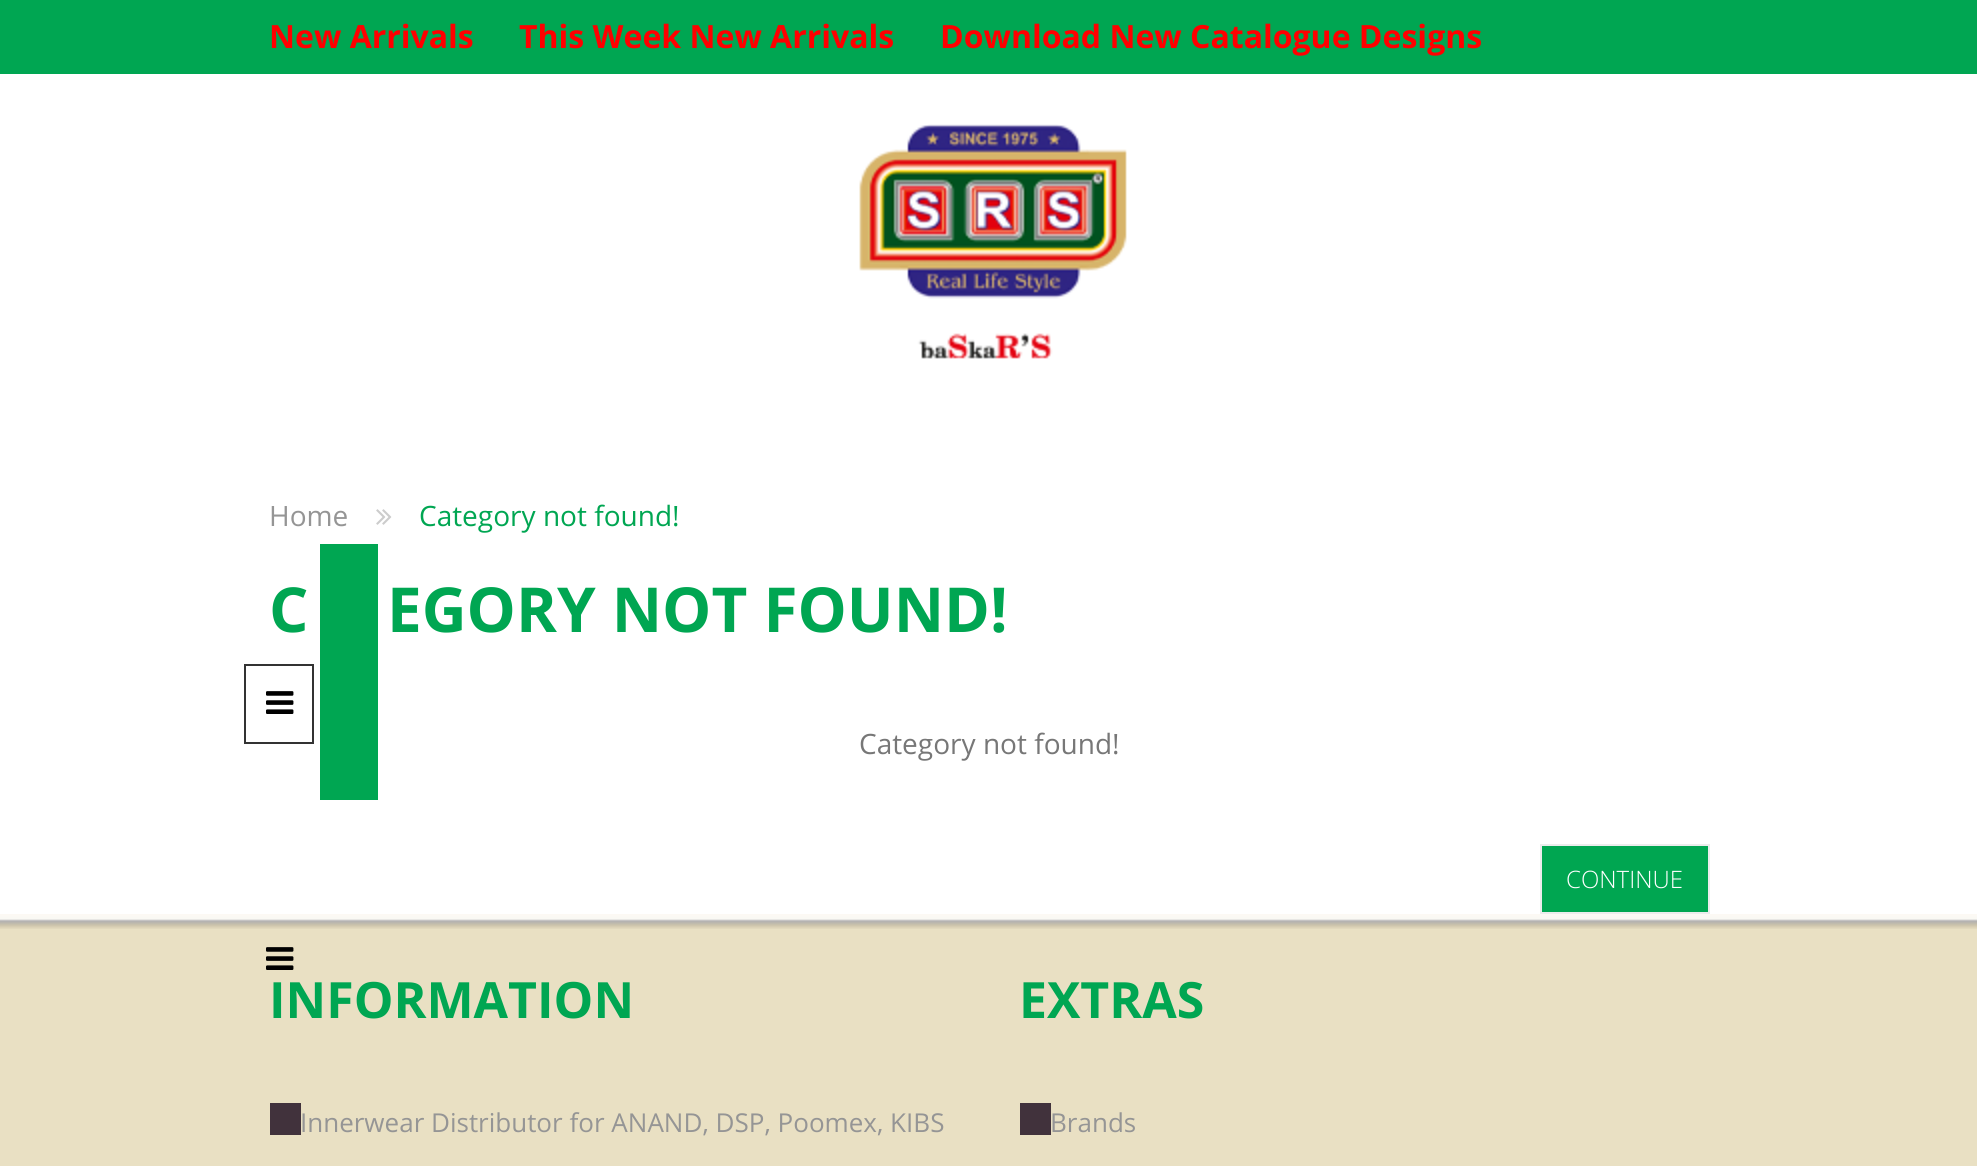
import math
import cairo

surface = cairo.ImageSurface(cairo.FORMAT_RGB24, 1977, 1166)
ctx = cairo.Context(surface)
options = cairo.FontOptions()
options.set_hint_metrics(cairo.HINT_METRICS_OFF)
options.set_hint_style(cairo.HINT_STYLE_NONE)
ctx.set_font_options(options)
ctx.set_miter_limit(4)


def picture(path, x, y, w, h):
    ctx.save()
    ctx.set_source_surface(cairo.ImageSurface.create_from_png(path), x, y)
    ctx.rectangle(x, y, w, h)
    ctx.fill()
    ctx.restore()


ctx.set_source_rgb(1, 1, 1)
ctx.paint()
ctx.set_source_rgb(0, 0.651, 0.322)
ctx.rectangle(0, 0, 1977, 74)
ctx.fill()
ctx.select_font_face("Open Sans", cairo.FONT_SLANT_NORMAL, cairo.FONT_WEIGHT_BOLD)
ctx.set_font_size(32)
ctx.set_source_rgb(1, 0, 0)
ctx.move_to(269, 48)
ctx.show_text("New Arrivals")
ctx.move_to(519, 48)
ctx.show_text("This Week New Arrivals")
ctx.move_to(940, 48)
ctx.show_text("Download New Catalogue Designs")
picture("img1.png", 859, 124, 268, 235)
ctx.set_source_rgb(0, 0.651, 0.322)
ctx.rectangle(320, 544, 58, 256)
ctx.fill()
ctx.rectangle(245, 665, 68, 78)
ctx.set_source_rgb(0.2, 0.2, 0.2)
ctx.stroke()
picture("img2.png", 266, 691, 28, 23)
ctx.set_source_rgb(0.914, 0.878, 0.765)
ctx.rectangle(0, 929, 1977, 237)
ctx.fill()
picture("img3.png", 266, 947, 28, 23)
ctx.select_font_face("Open Sans")
ctx.set_font_size(28)
ctx.set_source_rgb(0.584, 0.584, 0.584)
ctx.move_to(269, 526)
ctx.show_text("Home")
picture("img4.png", 376, 509, 16, 16)
ctx.set_source_rgb(0, 0.651, 0.322)
ctx.move_to(419, 526)
ctx.show_text("Category not found!")
ctx.select_font_face("Open Sans", cairo.FONT_SLANT_NORMAL, cairo.FONT_WEIGHT_BOLD)
ctx.set_font_size(62)
ctx.move_to(269, 632)
ctx.show_text("C")
ctx.move_to(387, 632)
ctx.show_text("EGORY NOT FOUND!")
ctx.select_font_face("Open Sans")
ctx.set_font_size(28)
ctx.set_source_rgb(0.467, 0.467, 0.467)
ctx.move_to(859, 754)
ctx.show_text("Category not found!")
ctx.set_source_rgb(0, 0.651, 0.318)
ctx.rectangle(1541, 845, 168, 68)
ctx.fill_preserve()
ctx.set_source_rgb(0.922, 0.922, 0.922)
ctx.stroke()
ctx.select_font_face("Open Sans Light")
ctx.set_font_size(24)
ctx.set_source_rgb(1, 1, 1)
ctx.move_to(1566, 888)
ctx.show_text("CONTINUE")
picture("img5.png", 0, 914, 1977, 15)
ctx.select_font_face("Open Sans", cairo.FONT_SLANT_NORMAL, cairo.FONT_WEIGHT_BOLD)
ctx.set_font_size(50)
ctx.set_source_rgb(0, 0.651, 0.322)
ctx.move_to(269, 1018)
ctx.show_text("INFORMATION")
ctx.set_source_rgb(0.255, 0.196, 0.235)
ctx.rectangle(270, 1103, 31, 32)
ctx.fill()
ctx.select_font_face("Open Sans")
ctx.set_font_size(26)
ctx.set_source_rgb(0.584, 0.584, 0.584)
ctx.move_to(300, 1132)
ctx.show_text("Innerwear Distributor for ANAND, DSP, Poomex, KIBS")
ctx.select_font_face("Open Sans", cairo.FONT_SLANT_NORMAL, cairo.FONT_WEIGHT_BOLD)
ctx.set_font_size(50)
ctx.set_source_rgb(0, 0.651, 0.322)
ctx.move_to(1019, 1018)
ctx.show_text("EXTRAS")
ctx.set_source_rgb(0.255, 0.196, 0.235)
ctx.rectangle(1020, 1103, 31, 32)
ctx.fill()
ctx.select_font_face("Open Sans")
ctx.set_font_size(26)
ctx.set_source_rgb(0.584, 0.584, 0.584)
ctx.move_to(1050, 1132)
ctx.show_text("Brands")
surface.write_to_png("page.png")
